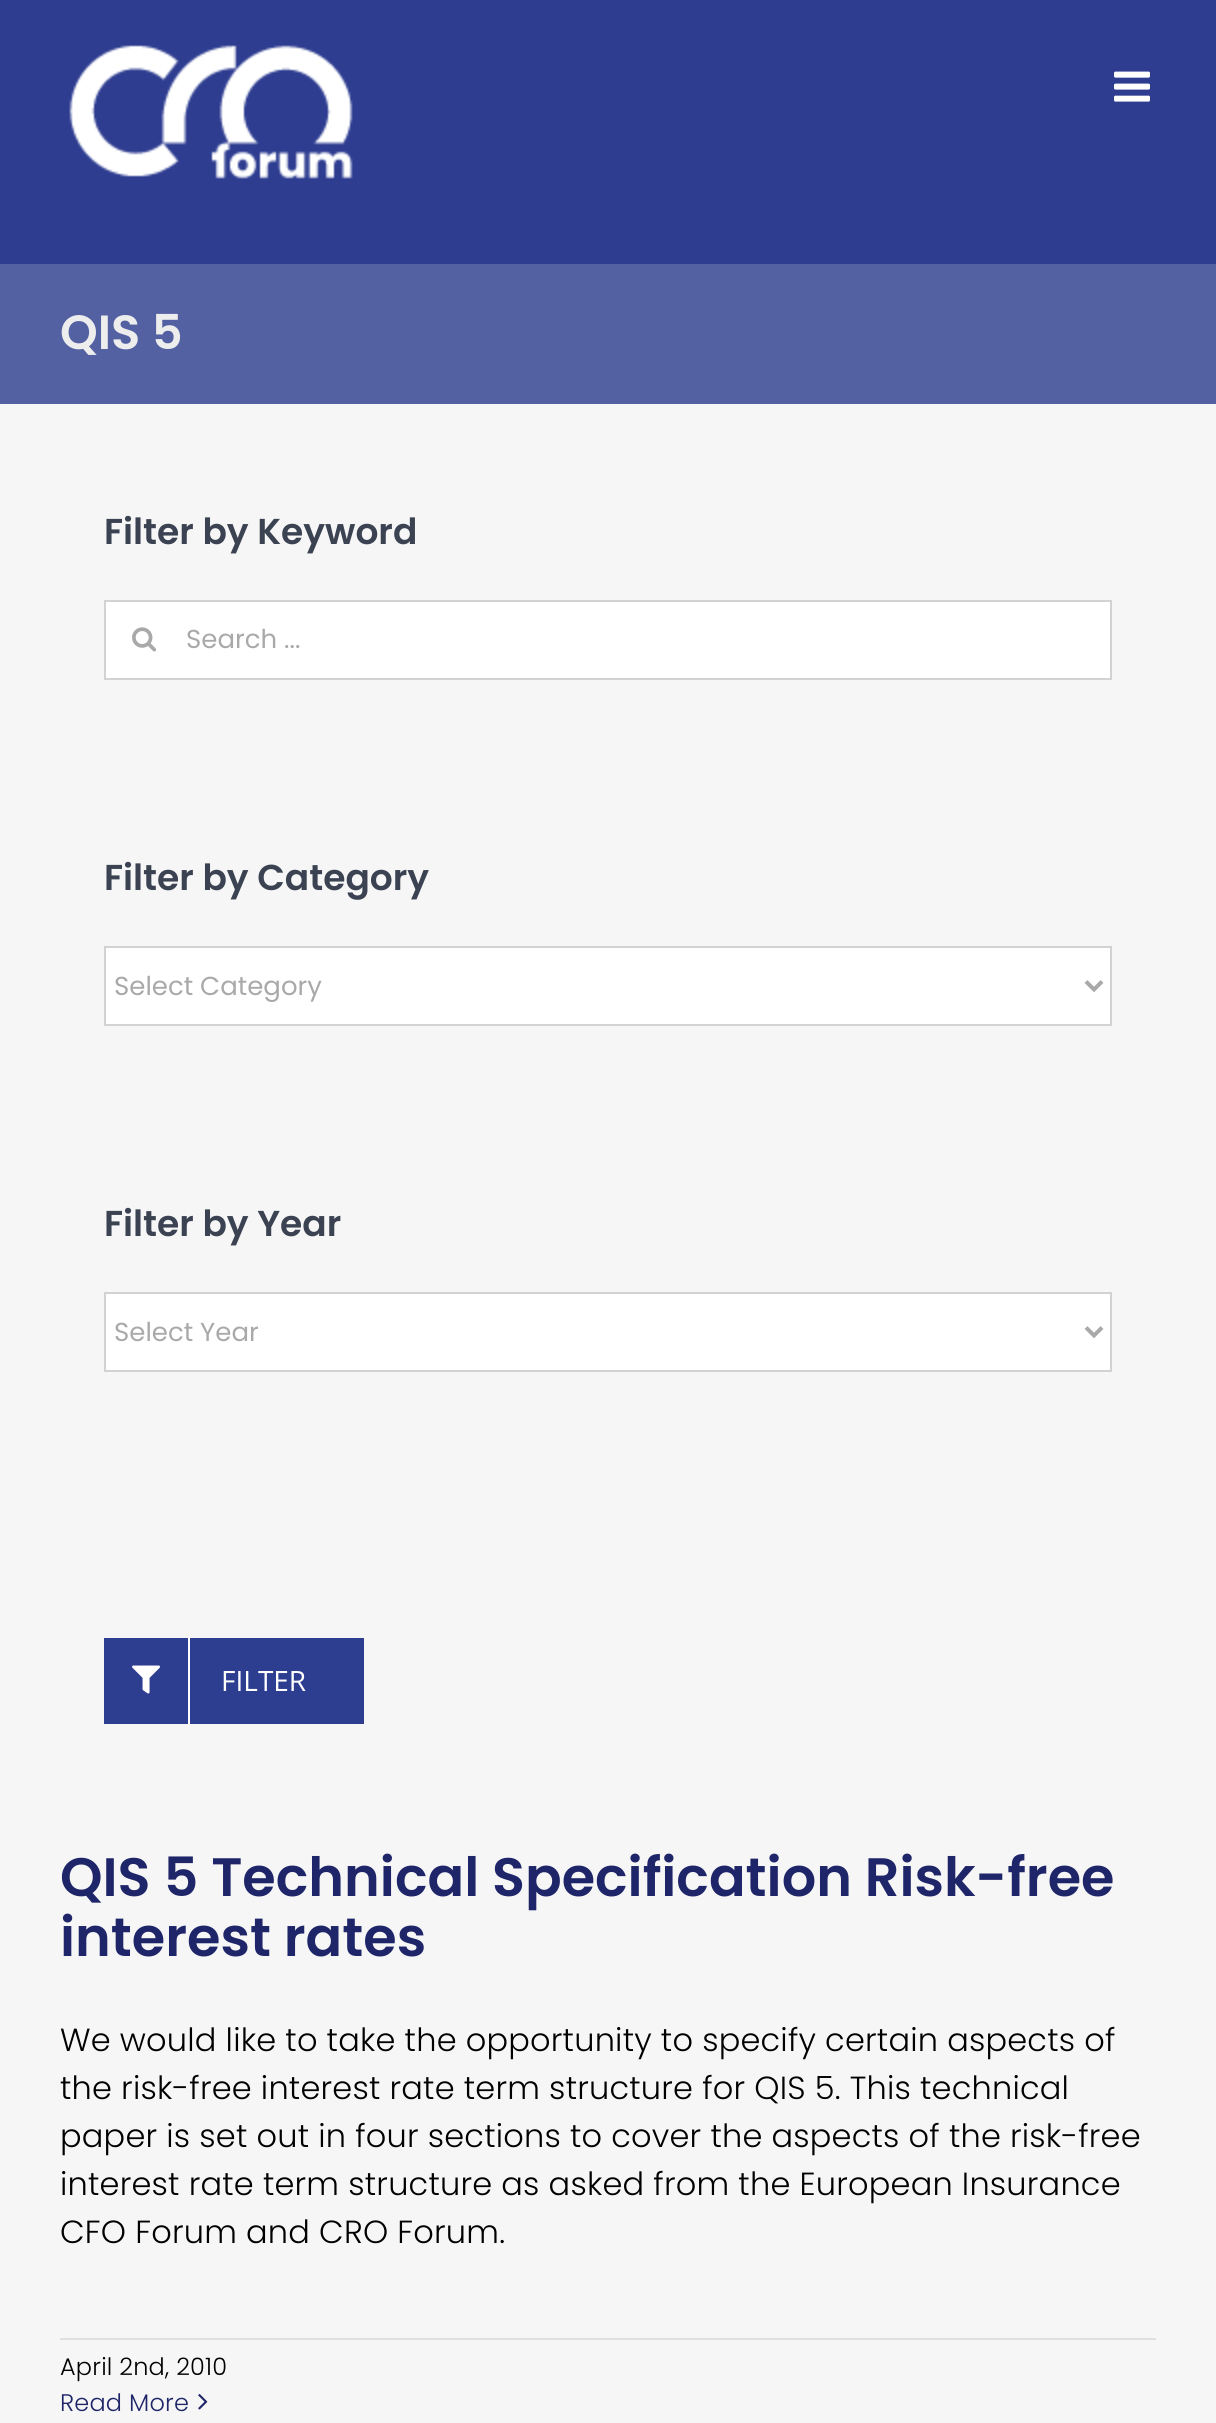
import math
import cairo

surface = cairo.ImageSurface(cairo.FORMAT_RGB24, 1216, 2423)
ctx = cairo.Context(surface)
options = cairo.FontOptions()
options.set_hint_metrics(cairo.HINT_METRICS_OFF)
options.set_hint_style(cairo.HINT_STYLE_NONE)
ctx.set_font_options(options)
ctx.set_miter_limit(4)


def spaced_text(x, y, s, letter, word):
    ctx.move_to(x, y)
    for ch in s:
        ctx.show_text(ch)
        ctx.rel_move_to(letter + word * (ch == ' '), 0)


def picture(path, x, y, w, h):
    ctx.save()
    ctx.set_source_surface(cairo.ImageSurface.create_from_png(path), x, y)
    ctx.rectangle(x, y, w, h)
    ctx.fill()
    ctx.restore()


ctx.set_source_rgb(0.961, 0.961, 0.961)
ctx.paint()
ctx.set_source_rgb(0.18, 0.239, 0.565)
ctx.rectangle(0, 0, 1216, 264)
ctx.fill()
picture("img1.png", 69, 45, 284, 134)
picture("img2.png", 1114, 71, 36, 31)
ctx.set_source_rgb(0.325, 0.38, 0.639)
ctx.rectangle(0, 264, 1216, 140)
ctx.fill()
ctx.select_font_face("Poppins SemiBold")
ctx.set_font_size(48)
ctx.set_source_rgb(0.929, 0.929, 0.929)
ctx.move_to(60, 349)
ctx.show_text("QIS 5")
ctx.set_font_size(36)
ctx.set_source_rgb(0.231, 0.259, 0.318)
ctx.move_to(104, 544)
ctx.show_text("Filter by Keyword")
ctx.set_source_rgb(1, 1, 1)
ctx.rectangle(105, 601, 1006, 78)
ctx.fill_preserve()
ctx.set_source_rgb(0.824, 0.824, 0.824)
ctx.stroke()
picture("img3.png", 132, 627, 25, 25)
ctx.select_font_face("Poppins")
ctx.set_font_size(26)
ctx.set_source_rgb(0.667, 0.663, 0.663)
ctx.move_to(186, 648)
ctx.show_text("Search ...")
ctx.select_font_face("Poppins SemiBold")
ctx.set_font_size(36)
ctx.set_source_rgb(0.231, 0.259, 0.318)
ctx.move_to(104, 890)
ctx.show_text("Filter by Category")
ctx.set_source_rgb(1, 1, 1)
ctx.rectangle(105, 947, 1006, 78)
ctx.fill_preserve()
ctx.set_source_rgb(0.824, 0.824, 0.824)
ctx.stroke()
ctx.new_path()
ctx.move_to(1086, 981.5)
ctx.line_to(1094, 989.5)
ctx.line_to(1102, 981.5)
ctx.set_source_rgb(0.667, 0.663, 0.663)
ctx.set_line_width(4)
ctx.stroke()
ctx.select_font_face("Poppins")
ctx.set_font_size(26)
ctx.move_to(114, 995)
ctx.show_text("Select Category")
ctx.select_font_face("Poppins SemiBold")
ctx.set_font_size(36)
ctx.set_source_rgb(0.231, 0.259, 0.318)
ctx.move_to(104, 1236)
ctx.show_text("Filter by Year")
ctx.set_source_rgb(1, 1, 1)
ctx.rectangle(105, 1293, 1006, 78)
ctx.fill_preserve()
ctx.set_source_rgb(0.824, 0.824, 0.824)
ctx.set_line_width(2)
ctx.stroke()
ctx.new_path()
ctx.move_to(1086, 1327.5)
ctx.line_to(1094, 1335.5)
ctx.line_to(1102, 1327.5)
ctx.set_source_rgb(0.667, 0.663, 0.663)
ctx.set_line_width(4)
ctx.stroke()
ctx.select_font_face("Poppins")
ctx.set_font_size(26)
ctx.move_to(114, 1341)
ctx.show_text("Select Year")
ctx.set_source_rgb(0.176, 0.243, 0.569)
ctx.rectangle(104, 1638, 260, 86)
ctx.fill()
ctx.set_source_rgb(1, 1, 1)
ctx.rectangle(188, 1638, 2, 86)
ctx.fill()
picture("img4.png", 132, 1665, 28, 29)
ctx.select_font_face("Open Sans")
ctx.set_font_size(28)
ctx.move_to(221, 1691)
ctx.show_text("FILTER")
ctx.select_font_face("Poppins SemiBold")
ctx.set_font_size(54.1)
ctx.set_source_rgb(0.118, 0.145, 0.408)
ctx.move_to(60, 1896)
ctx.show_text("QIS 5 Technical Specification Risk-free")
ctx.move_to(60, 1956)
ctx.show_text("interest rates")
ctx.select_font_face("Poppins Light")
ctx.set_font_size(32)
ctx.set_source_rgb(0, 0, 0)
spaced_text(60, 2051, "We would like to take the opportunity to specify certain aspects of", 0.2, 0)
spaced_text(60, 2099, "the risk-free interest rate term structure for QIS 5. This technical", 0.2, 0)
spaced_text(60, 2147, "paper is set out in four sections to cover the aspects of the risk-free", 0.2, 0)
spaced_text(60, 2195, "interest rate term structure as asked from the European Insurance", 0.2, 0)
spaced_text(60, 2243, "CFO Forum and CRO Forum.", 0.2, 0)
ctx.set_source_rgb(0.878, 0.871, 0.871)
ctx.rectangle(60, 2338, 1096, 2)
ctx.fill()
ctx.set_font_size(24)
ctx.set_source_rgb(0, 0, 0)
spaced_text(60, 2375, "April 2nd, 2010", 0.2, 0)
ctx.set_source_rgb(0.118, 0.145, 0.408)
spaced_text(60, 2411, "Read More", 0.2, 0)
picture("img5.png", 198, 2394, 10, 16)
surface.write_to_png("page.png")
